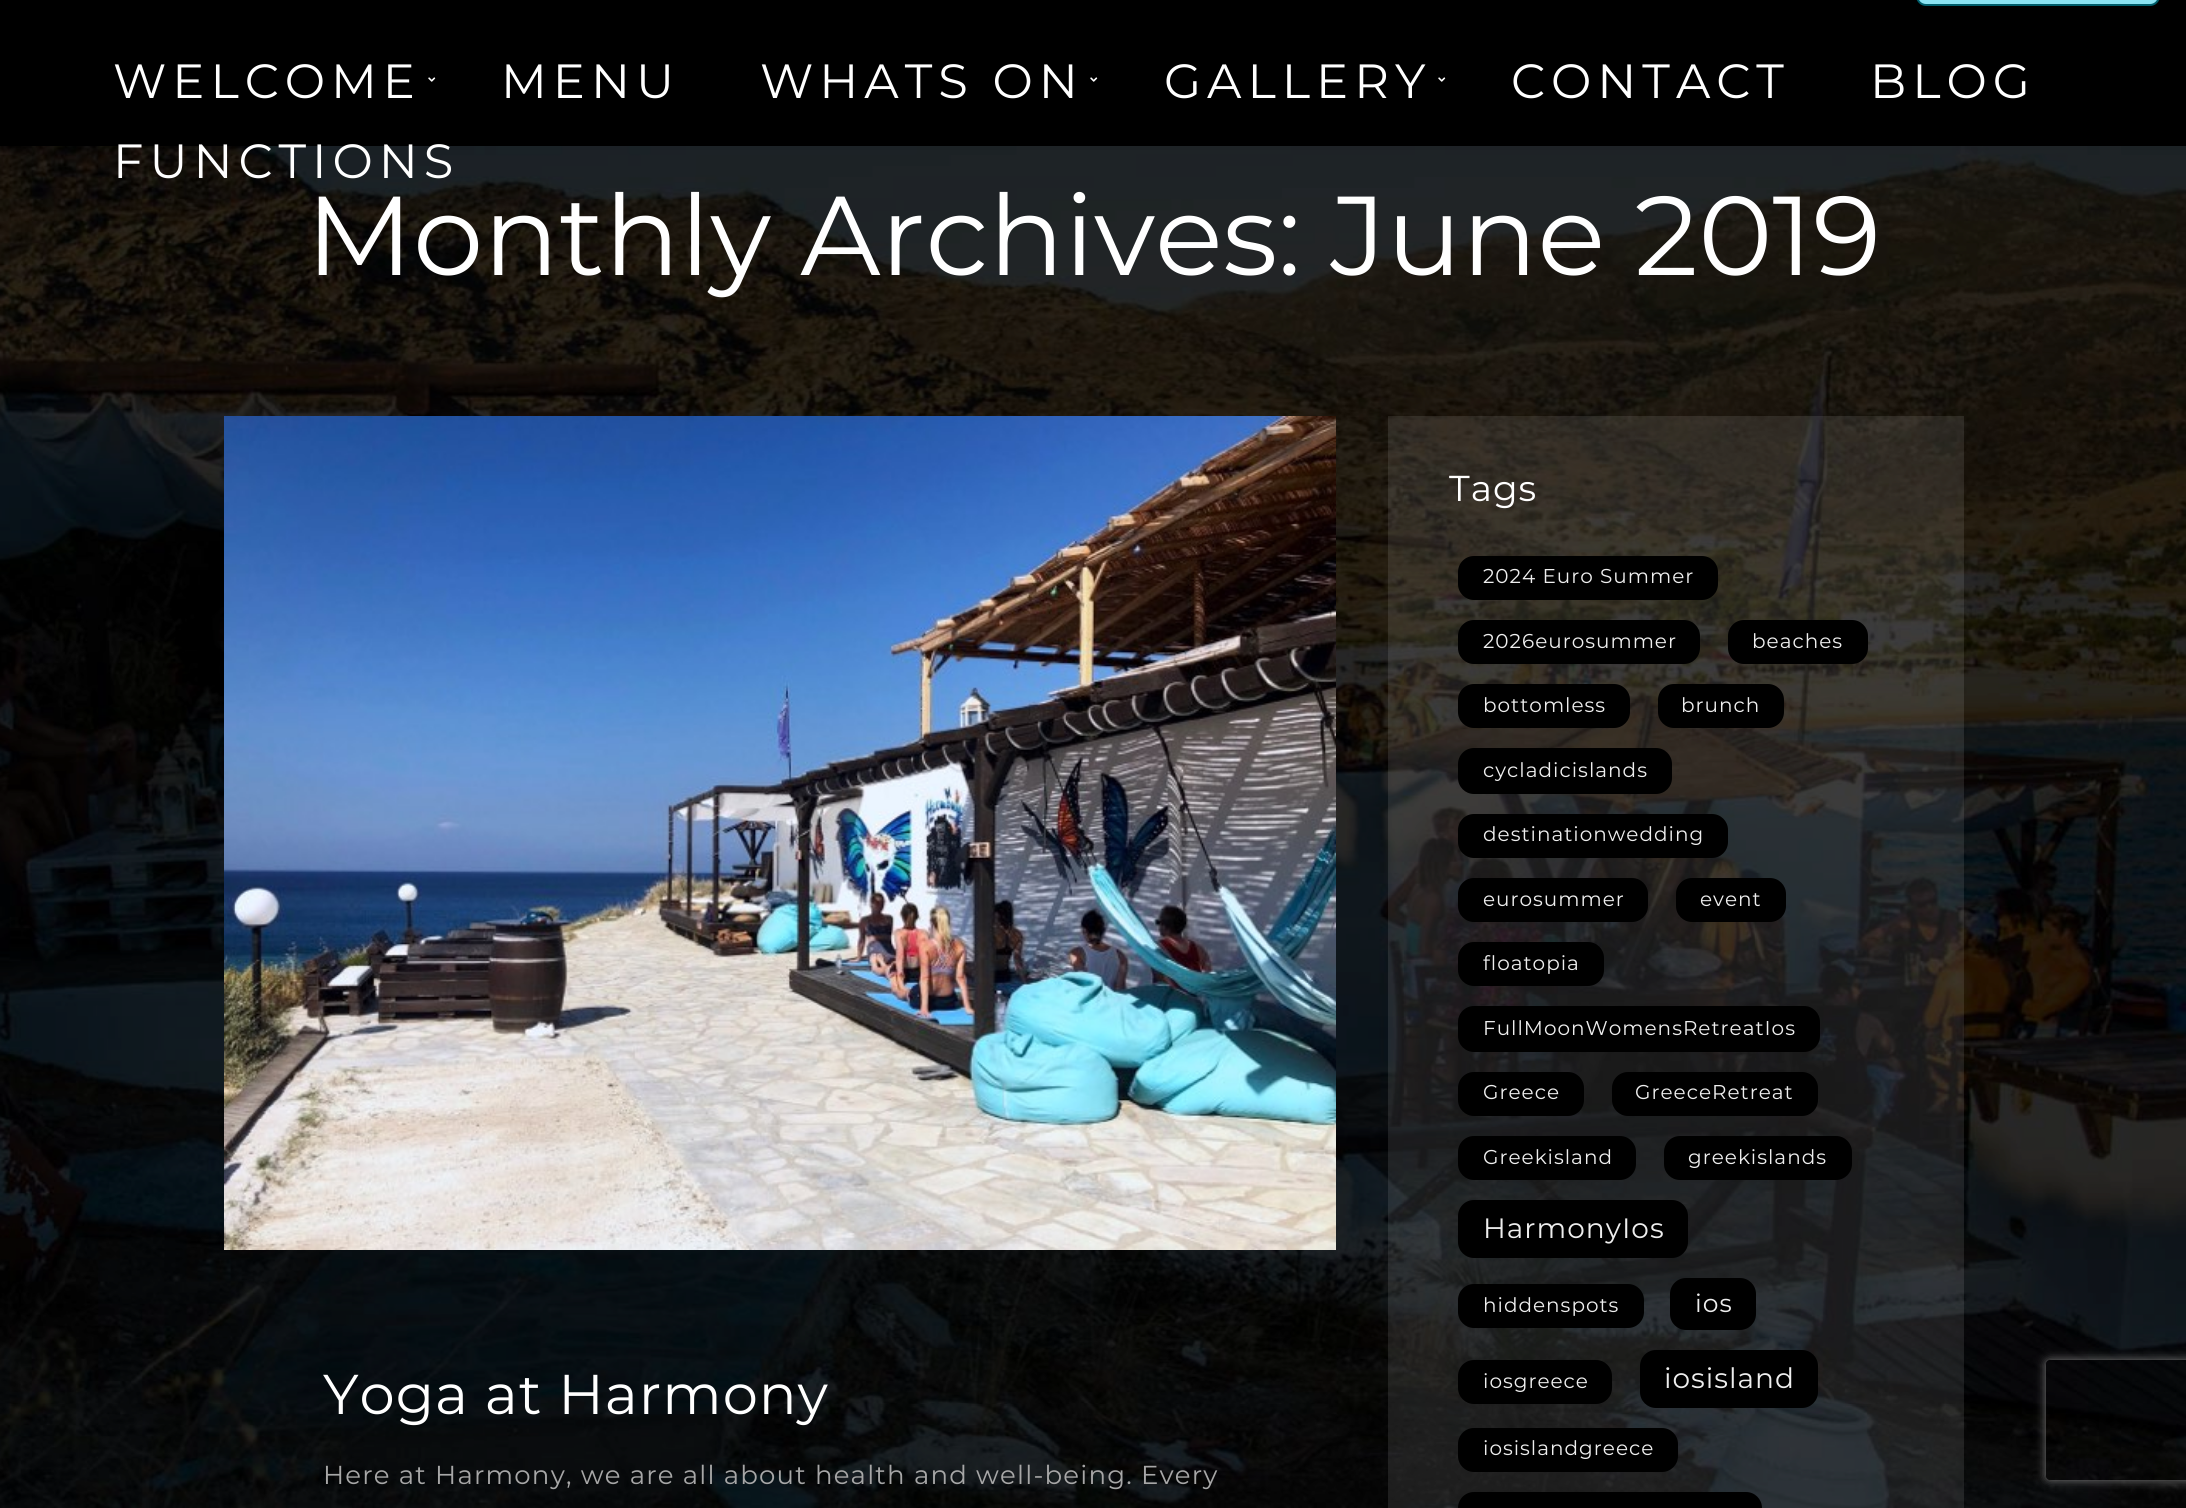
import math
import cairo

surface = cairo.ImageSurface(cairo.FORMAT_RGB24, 2186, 1508)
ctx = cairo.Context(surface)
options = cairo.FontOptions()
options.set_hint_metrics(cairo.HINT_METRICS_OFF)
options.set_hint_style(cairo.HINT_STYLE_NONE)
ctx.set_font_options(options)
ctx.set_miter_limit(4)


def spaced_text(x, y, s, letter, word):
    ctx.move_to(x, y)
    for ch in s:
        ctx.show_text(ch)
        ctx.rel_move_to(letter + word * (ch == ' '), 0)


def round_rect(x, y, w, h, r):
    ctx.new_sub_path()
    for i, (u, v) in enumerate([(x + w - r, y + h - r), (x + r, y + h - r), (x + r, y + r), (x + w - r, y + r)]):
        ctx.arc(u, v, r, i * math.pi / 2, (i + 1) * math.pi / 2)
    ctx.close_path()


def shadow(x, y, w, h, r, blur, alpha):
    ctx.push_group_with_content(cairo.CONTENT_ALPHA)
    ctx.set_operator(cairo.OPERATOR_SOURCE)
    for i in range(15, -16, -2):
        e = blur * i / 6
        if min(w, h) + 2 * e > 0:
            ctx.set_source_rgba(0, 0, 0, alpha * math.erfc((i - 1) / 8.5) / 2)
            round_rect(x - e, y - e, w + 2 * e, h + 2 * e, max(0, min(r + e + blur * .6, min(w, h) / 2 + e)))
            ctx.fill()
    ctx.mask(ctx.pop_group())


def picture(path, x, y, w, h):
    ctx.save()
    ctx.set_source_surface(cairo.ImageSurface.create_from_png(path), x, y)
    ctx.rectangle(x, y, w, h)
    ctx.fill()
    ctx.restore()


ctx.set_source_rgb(1, 1, 1)
ctx.paint()
ctx.set_source_rgb(0, 0, 0)
ctx.rectangle(0, 0, 2186, 146)
ctx.fill()
ctx.set_source_rgb(0.545, 0.894, 0.953)
round_rect(1917, -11, 242, 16, 9)
ctx.fill_preserve()
ctx.set_source_rgb(0, 0.369, 0.42)
ctx.stroke()
ctx.select_font_face("Montserrat")
ctx.set_font_size(48)
ctx.set_source_rgb(1, 1, 1)
spaced_text(113, 98, "WELCOME", 6, 0)
picture("img1.png", 428, 77, 8, 5)
spaced_text(501, 98, "MENU", 6, 0)
spaced_text(760, 98, "WHATS ON", 6, 0)
picture("img1.png", 1090, 77, 8, 5)
spaced_text(1164, 98, "GALLERY", 6, 0)
picture("img1.png", 1438, 77, 8, 5)
spaced_text(1511, 98, "CONTACT", 6, 0)
spaced_text(1870, 98, "BLOG", 6, 0)
picture("img2.png", 0, 146, 2186, 1362)
spaced_text(113, 178, "FUNCTIONS", 6, 0)
ctx.set_font_size(112)
ctx.move_to(306, 275)
ctx.show_text("Monthly Archives: June 2019")
picture("img3.png", 224, 416, 1112, 834)
ctx.set_font_size(56)
spaced_text(323, 1414, "Yoga at Harmony", 1, 0)
ctx.set_font_size(26)
ctx.set_source_rgb(0.655, 0.655, 0.655)
spaced_text(323, 1484, "Here at Harmony, we are all about health and well-being. Every", 1.2, 0)
ctx.set_source_rgba(1, 1, 1, 0.1)
ctx.rectangle(1388, 416, 576, 1092)
ctx.fill()
ctx.set_font_size(36)
ctx.set_source_rgb(1, 1, 1)
spaced_text(1449, 501, "Tags", 1, 0)
ctx.set_source_rgb(0, 0, 0)
round_rect(1458, 556, 260, 44, 16)
ctx.fill()
ctx.set_font_size(20)
ctx.set_source_rgb(0.933, 0.933, 0.933)
spaced_text(1483, 583, "2024 Euro Summer", 1, 0)
ctx.set_source_rgb(0, 0, 0)
round_rect(1458, 620, 242, 44, 16)
ctx.fill()
ctx.set_source_rgb(0.933, 0.933, 0.933)
spaced_text(1483, 648, "2026eurosummer", 1, 0)
ctx.set_source_rgb(0, 0, 0)
round_rect(1728, 620, 140, 44, 16)
ctx.fill()
ctx.set_source_rgb(0.933, 0.933, 0.933)
spaced_text(1752, 648, "beaches", 1, 0)
ctx.set_source_rgb(0, 0, 0)
round_rect(1458, 684, 172, 44, 16)
ctx.fill()
ctx.set_source_rgb(0.933, 0.933, 0.933)
spaced_text(1483, 712, "bottomless", 1, 0)
ctx.set_source_rgb(0, 0, 0)
round_rect(1658, 684, 126, 44, 16)
ctx.fill()
ctx.set_source_rgb(0.933, 0.933, 0.933)
spaced_text(1681, 712, "brunch", 1, 0)
ctx.set_source_rgb(0, 0, 0)
round_rect(1458, 748, 214, 46, 16)
ctx.fill()
ctx.set_source_rgb(0.933, 0.933, 0.933)
spaced_text(1483, 777, "cycladicislands", 1, 0)
ctx.set_source_rgb(0, 0, 0)
round_rect(1458, 814, 270, 44, 16)
ctx.fill()
ctx.set_source_rgb(0.933, 0.933, 0.933)
spaced_text(1483, 841, "destinationwedding", 1, 0)
ctx.set_source_rgb(0, 0, 0)
round_rect(1458, 878, 190, 44, 16)
ctx.fill()
ctx.set_source_rgb(0.933, 0.933, 0.933)
spaced_text(1483, 906, "eurosummer", 1, 0)
ctx.set_source_rgb(0, 0, 0)
round_rect(1676, 878, 110, 44, 16)
ctx.fill()
ctx.set_source_rgb(0.933, 0.933, 0.933)
spaced_text(1700, 906, "event", 1, 0)
ctx.set_source_rgb(0, 0, 0)
round_rect(1458, 942, 146, 44, 16)
ctx.fill()
ctx.set_source_rgb(0.933, 0.933, 0.933)
spaced_text(1483, 970, "floatopia", 1, 0)
ctx.set_source_rgb(0, 0, 0)
round_rect(1458, 1006, 362, 46, 16)
ctx.fill()
ctx.set_source_rgb(0.933, 0.933, 0.933)
spaced_text(1483, 1035, "FullMoonWomensRetreatIos", 1, 0)
ctx.set_source_rgb(0, 0, 0)
round_rect(1458, 1072, 126, 44, 16)
ctx.fill()
ctx.set_source_rgb(0.933, 0.933, 0.933)
spaced_text(1483, 1099, "Greece", 1, 0)
ctx.set_source_rgb(0, 0, 0)
round_rect(1612, 1072, 206, 44, 16)
ctx.fill()
ctx.set_source_rgb(0.933, 0.933, 0.933)
spaced_text(1635, 1099, "GreeceRetreat", 1, 0)
ctx.set_source_rgb(0, 0, 0)
round_rect(1458, 1136, 178, 44, 16)
ctx.fill()
ctx.set_source_rgb(0.933, 0.933, 0.933)
spaced_text(1483, 1164, "Greekisland", 1, 0)
ctx.set_source_rgb(0, 0, 0)
round_rect(1664, 1136, 188, 44, 16)
ctx.fill()
ctx.set_source_rgb(0.933, 0.933, 0.933)
spaced_text(1688, 1164, "greekislands", 1, 0)
ctx.set_source_rgb(0, 0, 0)
round_rect(1458, 1200, 230, 58, 16)
ctx.fill()
ctx.set_font_size(28)
ctx.set_source_rgb(0.933, 0.933, 0.933)
spaced_text(1483, 1238, "HarmonyIos", 1, 0)
ctx.set_source_rgb(0, 0, 0)
round_rect(1458, 1284, 186, 44, 16)
ctx.fill()
ctx.set_font_size(20)
ctx.set_source_rgb(0.933, 0.933, 0.933)
spaced_text(1483, 1312, "hiddenspots", 1, 0)
ctx.set_source_rgb(0, 0, 0)
round_rect(1670, 1278, 86, 52, 16)
ctx.fill()
ctx.set_font_size(25)
ctx.set_source_rgb(0.933, 0.933, 0.933)
spaced_text(1695, 1312, "ios", 1, 0)
ctx.set_source_rgb(0, 0, 0)
round_rect(1458, 1360, 154, 44, 16)
ctx.fill()
ctx.set_font_size(20)
ctx.set_source_rgb(0.933, 0.933, 0.933)
spaced_text(1483, 1388, "iosgreece", 1, 0)
ctx.set_source_rgb(0, 0, 0)
round_rect(1640, 1350, 178, 58, 16)
ctx.fill()
ctx.set_font_size(28)
ctx.set_source_rgb(0.933, 0.933, 0.933)
spaced_text(1664, 1388, "iosisland", 1, 0)
ctx.set_source_rgb(0, 0, 0)
round_rect(1458, 1428, 220, 44, 16)
ctx.fill()
ctx.set_font_size(20)
ctx.set_source_rgb(0.933, 0.933, 0.933)
spaced_text(1483, 1455, "iosislandgreece", 1, 0)
ctx.set_source_rgb(0, 0, 0)
round_rect(1458, 1492, 304, 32, 16)
ctx.fill()
ctx.save()
ctx.set_fill_rule(cairo.FILL_RULE_EVEN_ODD)
ctx.new_path()
ctx.move_to(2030, 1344)
ctx.line_to(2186, 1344)
ctx.line_to(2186, 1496)
ctx.line_to(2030, 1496)
ctx.close_path()
ctx.move_to(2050, 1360)
ctx.line_to(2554, 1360)
ctx.curve_to(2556, 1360, 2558, 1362, 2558, 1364)
ctx.line_to(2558, 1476)
ctx.curve_to(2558, 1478, 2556, 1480, 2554, 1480)
ctx.line_to(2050, 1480)
ctx.curve_to(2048, 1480, 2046, 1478, 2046, 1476)
ctx.line_to(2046, 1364)
ctx.curve_to(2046, 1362, 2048, 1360, 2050, 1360)
ctx.close_path()
ctx.clip()
ctx.set_source_rgb(0.502, 0.502, 0.502)
shadow(2046, 1360, 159, 120, 4, 5, 1)
ctx.restore()
surface.write_to_png("page.png")
